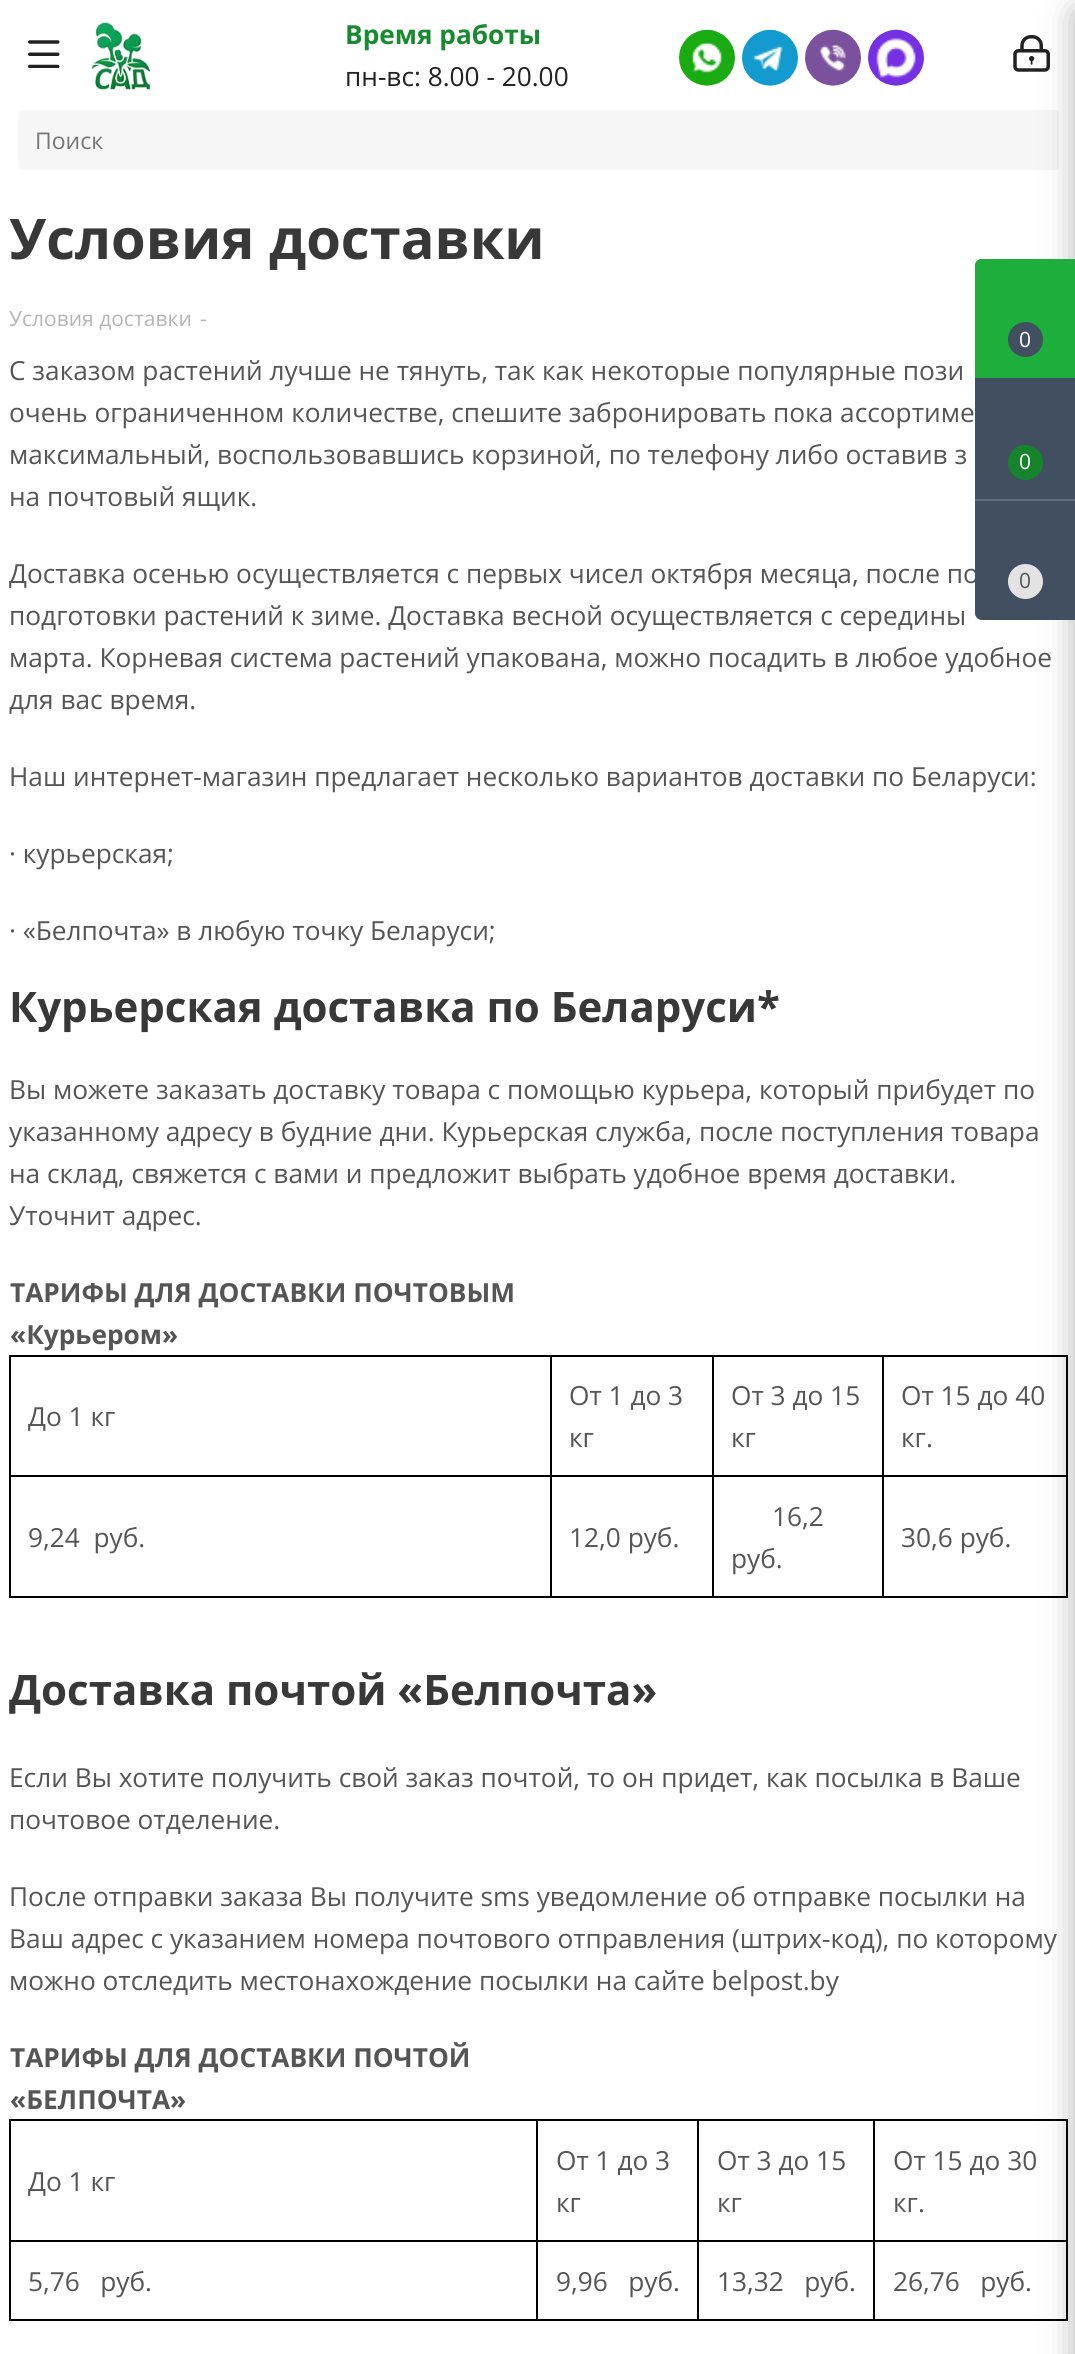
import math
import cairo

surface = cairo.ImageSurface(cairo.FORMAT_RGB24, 1075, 2354)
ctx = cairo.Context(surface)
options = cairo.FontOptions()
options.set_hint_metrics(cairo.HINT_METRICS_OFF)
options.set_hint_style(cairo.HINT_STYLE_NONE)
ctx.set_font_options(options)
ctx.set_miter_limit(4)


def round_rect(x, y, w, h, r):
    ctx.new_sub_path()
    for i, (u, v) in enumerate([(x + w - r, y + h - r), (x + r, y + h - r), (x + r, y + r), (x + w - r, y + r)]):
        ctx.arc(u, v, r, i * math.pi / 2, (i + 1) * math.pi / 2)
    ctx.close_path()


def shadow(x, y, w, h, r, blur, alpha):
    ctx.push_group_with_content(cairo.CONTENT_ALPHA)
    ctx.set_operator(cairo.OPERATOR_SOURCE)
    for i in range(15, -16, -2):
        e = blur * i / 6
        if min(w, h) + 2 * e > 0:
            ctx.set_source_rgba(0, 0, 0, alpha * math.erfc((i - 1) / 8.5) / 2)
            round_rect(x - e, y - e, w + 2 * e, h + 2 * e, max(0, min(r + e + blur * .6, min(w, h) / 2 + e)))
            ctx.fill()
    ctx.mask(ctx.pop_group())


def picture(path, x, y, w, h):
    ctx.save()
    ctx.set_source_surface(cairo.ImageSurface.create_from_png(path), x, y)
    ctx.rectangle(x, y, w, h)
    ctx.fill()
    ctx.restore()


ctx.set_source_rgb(1, 1, 1)
ctx.paint()
picture("img1.png", 28, 40, 32, 28)
picture("img2.png", 91, 22, 59, 68)
ctx.select_font_face("Open Sans", cairo.FONT_SLANT_NORMAL, cairo.FONT_WEIGHT_BOLD)
ctx.set_font_size(26.25)
ctx.set_source_rgb(0.094, 0.545, 0.188)
ctx.move_to(345, 44)
ctx.show_text("Время работы")
ctx.select_font_face("Open Sans")
ctx.set_source_rgb(0.133, 0.133, 0.133)
ctx.move_to(345, 86)
ctx.show_text("пн-вс: 8.00 - 20.00")
picture("img3.png", 679, 29, 56, 57)
picture("img4.png", 742, 29, 56, 57)
picture("img5.png", 805, 29, 56, 57)
picture("img6.png", 868, 29, 56, 57)
picture("img7.png", 1013, 35, 37, 37)
ctx.set_source_rgb(0.961, 0.961, 0.961)
round_rect(18, 110, 1041, 60, 5)
ctx.fill()
ctx.set_font_size(23)
ctx.set_source_rgb(0.459, 0.459, 0.459)
ctx.move_to(35, 149)
ctx.show_text("Поиск")
round_rect(993, 111, 65, 58, 3)
ctx.set_source_rgb(0.961, 0.961, 0.961)
ctx.stroke()
ctx.select_font_face("Open Sans", cairo.FONT_SLANT_NORMAL, cairo.FONT_WEIGHT_BOLD)
ctx.set_font_size(56)
ctx.set_source_rgb(0.22, 0.22, 0.22)
ctx.move_to(9, 259)
ctx.show_text("Условия доставки")
ctx.select_font_face("Open Sans")
ctx.set_font_size(21)
ctx.set_source_rgb(0.714, 0.71, 0.71)
ctx.move_to(9, 326)
ctx.show_text("Условия доставки")
ctx.move_to(200, 326)
ctx.show_text("-")
ctx.set_font_size(26.25)
ctx.set_source_rgb(0.333, 0.333, 0.333)
ctx.move_to(9, 380)
ctx.show_text("С заказом растений лучше не тянуть, так как некоторые популярные пози")
ctx.move_to(9, 422)
ctx.show_text("очень ограниченном количестве, спешите забронировать пока ассортиме")
ctx.move_to(9, 464)
ctx.show_text("максимальный, воспользовавшись корзиной, по телефону либо оставив з")
ctx.move_to(9, 506)
ctx.show_text("на почтовый ящик.")
ctx.move_to(9, 583)
ctx.show_text("Доставка осенью осуществляется с первых чисел октября месяца, после по")
ctx.move_to(9, 625)
ctx.show_text("подготовки растений к зиме. Доставка весной осуществляется с середины")
ctx.move_to(9, 667)
ctx.show_text("марта. Корневая система растений упакована, можно посадить в любое удобное")
ctx.move_to(9, 709)
ctx.show_text("для вас время.")
ctx.move_to(9, 786)
ctx.show_text("Наш интернет-магазин предлагает несколько вариантов доставки по Беларуси:")
ctx.move_to(9, 863)
ctx.show_text("· курьерская;")
ctx.move_to(9, 940)
ctx.show_text("· «Белпочта» в любую точку Беларуси;")
ctx.select_font_face("Open Sans", cairo.FONT_SLANT_NORMAL, cairo.FONT_WEIGHT_BOLD)
ctx.set_font_size(42)
ctx.set_source_rgb(0.22, 0.22, 0.22)
ctx.move_to(9, 1022)
ctx.show_text("Курьерская доставка по Беларуси*")
ctx.select_font_face("Open Sans")
ctx.set_font_size(26.25)
ctx.set_source_rgb(0.333, 0.333, 0.333)
ctx.move_to(9, 1099)
ctx.show_text("Вы можете заказать доставку товара с помощью курьера, который прибудет по")
ctx.move_to(9, 1141)
ctx.show_text("указанному адресу в будние дни. Курьерская служба, после поступления товара")
ctx.move_to(9, 1183)
ctx.show_text("на склад, свяжется с вами и предложит выбрать удобное время доставки.")
ctx.move_to(9, 1225)
ctx.show_text("Уточнит адрес.")
ctx.select_font_face("Open Sans", cairo.FONT_SLANT_NORMAL, cairo.FONT_WEIGHT_BOLD)
ctx.move_to(10, 1302)
ctx.show_text("ТАРИФЫ ДЛЯ ДОСТАВКИ ПОЧТОВЫМ")
ctx.move_to(10, 1344)
ctx.show_text("«Курьером»")
ctx.set_source_rgb(0, 0, 0)
ctx.rectangle(882, 1355, 186, 2)
ctx.fill()
ctx.rectangle(882, 1475, 186, 2)
ctx.fill()
ctx.rectangle(1066, 1475, 2, 123)
ctx.fill()
ctx.rectangle(882, 1596, 186, 2)
ctx.fill()
ctx.rectangle(882, 1475, 2, 123)
ctx.fill()
ctx.rectangle(712, 1475, 172, 2)
ctx.fill()
ctx.rectangle(882, 1355, 2, 122)
ctx.fill()
ctx.rectangle(712, 1355, 172, 2)
ctx.fill()
ctx.rectangle(712, 1596, 172, 2)
ctx.fill()
ctx.rectangle(712, 1475, 2, 123)
ctx.fill()
ctx.rectangle(550, 1475, 164, 2)
ctx.fill()
ctx.rectangle(712, 1355, 2, 122)
ctx.fill()
ctx.rectangle(550, 1355, 164, 2)
ctx.fill()
ctx.rectangle(550, 1596, 164, 2)
ctx.fill()
ctx.rectangle(550, 1475, 2, 123)
ctx.fill()
ctx.rectangle(9, 1475, 542, 2)
ctx.fill()
ctx.rectangle(550, 1355, 2, 122)
ctx.fill()
ctx.rectangle(9, 1355, 542, 2)
ctx.fill()
ctx.rectangle(9, 1596, 542, 2)
ctx.fill()
ctx.rectangle(9, 1475, 2, 123)
ctx.fill()
ctx.rectangle(9, 1355, 2, 122)
ctx.fill()
ctx.select_font_face("Open Sans")
ctx.set_source_rgb(0.333, 0.333, 0.333)
ctx.move_to(28, 1426)
ctx.show_text("До 1 кг")
ctx.move_to(569, 1405)
ctx.show_text("От 1 до 3")
ctx.move_to(569, 1447)
ctx.show_text("кг")
ctx.move_to(731, 1405)
ctx.show_text("От 3 до 15")
ctx.move_to(731, 1447)
ctx.show_text("кг")
ctx.set_source_rgb(0, 0, 0)
ctx.rectangle(1066, 1355, 2, 122)
ctx.fill()
ctx.set_source_rgb(0.333, 0.333, 0.333)
ctx.move_to(901, 1405)
ctx.show_text("От 15 до 40")
ctx.move_to(901, 1447)
ctx.show_text("кг.")
ctx.move_to(28, 1547)
ctx.show_text("9,24  руб.")
ctx.move_to(569, 1547)
ctx.show_text("12,0 руб.")
ctx.move_to(772, 1526)
ctx.show_text("16,2")
ctx.move_to(731, 1568)
ctx.show_text("руб.")
ctx.move_to(901, 1547)
ctx.show_text("30,6 руб.")
ctx.select_font_face("Open Sans", cairo.FONT_SLANT_NORMAL, cairo.FONT_WEIGHT_BOLD)
ctx.set_font_size(42)
ctx.set_source_rgb(0.22, 0.22, 0.22)
ctx.move_to(9, 1705)
ctx.show_text("Доставка почтой «Белпочта»")
ctx.select_font_face("Open Sans")
ctx.set_font_size(26.25)
ctx.set_source_rgb(0.333, 0.333, 0.333)
ctx.move_to(9, 1787)
ctx.show_text("Если Вы хотите получить свой заказ почтой, то он придет, как посылка в Ваше")
ctx.move_to(9, 1829)
ctx.show_text("почтовое отделение.")
ctx.move_to(9, 1906)
ctx.show_text("После отправки заказа Вы получите sms уведомление об отправке посылки на")
ctx.move_to(9, 1948)
ctx.show_text("Ваш адрес с указанием номера почтового отправления (штрих-код), по которому")
ctx.move_to(9, 1990)
ctx.show_text("можно отследить местонахождение посылки на сайте belpost.by")
ctx.select_font_face("Open Sans", cairo.FONT_SLANT_NORMAL, cairo.FONT_WEIGHT_BOLD)
ctx.move_to(10, 2067)
ctx.show_text("ТАРИФЫ ДЛЯ ДОСТАВКИ ПОЧТОЙ")
ctx.move_to(10, 2109)
ctx.show_text("«БЕЛПОЧТА»")
ctx.set_source_rgb(0, 0, 0)
ctx.rectangle(873, 2119, 195, 2)
ctx.fill()
ctx.rectangle(873, 2240, 195, 2)
ctx.fill()
ctx.rectangle(1066, 2240, 2, 81)
ctx.fill()
ctx.rectangle(873, 2319, 195, 2)
ctx.fill()
ctx.rectangle(873, 2240, 2, 81)
ctx.fill()
ctx.rectangle(697, 2240, 178, 2)
ctx.fill()
ctx.rectangle(873, 2119, 2, 123)
ctx.fill()
ctx.rectangle(697, 2119, 178, 2)
ctx.fill()
ctx.rectangle(697, 2319, 178, 2)
ctx.fill()
ctx.rectangle(697, 2240, 2, 81)
ctx.fill()
ctx.rectangle(536, 2240, 162, 2)
ctx.fill()
ctx.rectangle(697, 2119, 2, 123)
ctx.fill()
ctx.rectangle(536, 2119, 162, 2)
ctx.fill()
ctx.rectangle(536, 2319, 162, 2)
ctx.fill()
ctx.rectangle(536, 2240, 2, 81)
ctx.fill()
ctx.rectangle(9, 2240, 528, 2)
ctx.fill()
ctx.rectangle(536, 2119, 2, 123)
ctx.fill()
ctx.rectangle(9, 2119, 528, 2)
ctx.fill()
ctx.rectangle(9, 2319, 528, 2)
ctx.fill()
ctx.rectangle(9, 2240, 2, 81)
ctx.fill()
ctx.rectangle(9, 2119, 2, 123)
ctx.fill()
ctx.select_font_face("Open Sans")
ctx.set_source_rgb(0.333, 0.333, 0.333)
ctx.move_to(28, 2191)
ctx.show_text("До 1 кг")
ctx.move_to(556, 2170)
ctx.show_text("От 1 до 3")
ctx.move_to(556, 2212)
ctx.show_text("кг")
ctx.move_to(717, 2170)
ctx.show_text("От 3 до 15")
ctx.move_to(717, 2212)
ctx.show_text("кг")
ctx.set_source_rgb(0, 0, 0)
ctx.rectangle(1066, 2119, 2, 123)
ctx.fill()
ctx.set_source_rgb(0.333, 0.333, 0.333)
ctx.move_to(893, 2170)
ctx.show_text("От 15 до 30")
ctx.move_to(893, 2212)
ctx.show_text("кг.")
ctx.move_to(28, 2291)
ctx.show_text("5,76   руб.")
ctx.move_to(556, 2291)
ctx.show_text("9,96   руб.")
ctx.move_to(717, 2291)
ctx.show_text("13,32   руб.")
ctx.move_to(893, 2291)
ctx.show_text("26,76   руб.")
ctx.set_source_rgb(0.173, 0.173, 0.173)
shadow(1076, 11, 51, 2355, 4, 16, 0.4)
ctx.set_source_rgb(0.259, 0.31, 0.376)
ctx.new_path()
ctx.move_to(982, 259)
ctx.line_to(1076, 259)
ctx.line_to(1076, 620)
ctx.line_to(982, 620)
ctx.curve_to(978, 620, 975, 617, 975, 613)
ctx.line_to(975, 266)
ctx.curve_to(975, 262, 978, 259, 982, 259)
ctx.close_path()
ctx.fill()
ctx.set_source_rgb(0.118, 0.682, 0.235)
ctx.new_path()
ctx.move_to(982, 259)
ctx.line_to(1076, 259)
ctx.line_to(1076, 378)
ctx.line_to(975, 378)
ctx.line_to(975, 266)
ctx.curve_to(975, 262, 978, 259, 982, 259)
ctx.close_path()
ctx.fill()
ctx.set_source_rgb(0.259, 0.31, 0.376)
ctx.arc(1025.5, 339.5, 17.5, 0, 2 * math.pi)
ctx.fill()
ctx.set_font_size(21)
ctx.set_source_rgb(1, 1, 1)
ctx.move_to(1019, 347)
ctx.show_text("0")
ctx.set_source_rgb(0.086, 0.514, 0.176)
ctx.new_path()
ctx.arc(1025.5, 462.5, 17.5, 0, 2 * math.pi)
ctx.fill()
ctx.set_source_rgb(1, 1, 1)
ctx.move_to(1019, 469)
ctx.show_text("0")
ctx.set_source_rgb(0.388, 0.435, 0.49)
ctx.rectangle(975, 499, 100, 2)
ctx.fill()
ctx.set_source_rgb(0.89, 0.89, 0.89)
ctx.arc(1025.5, 581.5, 17.5, 0, 2 * math.pi)
ctx.fill()
ctx.set_source_rgb(0.333, 0.333, 0.333)
ctx.move_to(1019, 588)
ctx.show_text("0")
surface.write_to_png("page.png")
